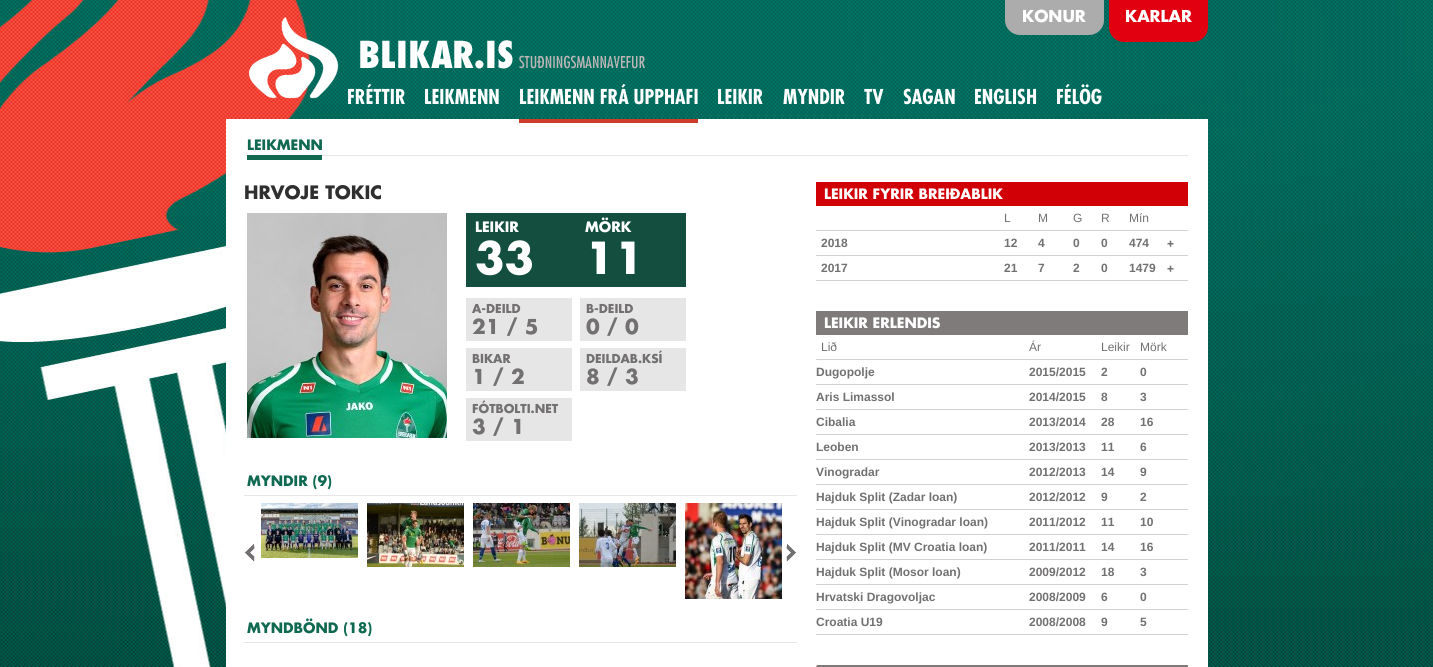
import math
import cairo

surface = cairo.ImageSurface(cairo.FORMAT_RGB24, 1433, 667)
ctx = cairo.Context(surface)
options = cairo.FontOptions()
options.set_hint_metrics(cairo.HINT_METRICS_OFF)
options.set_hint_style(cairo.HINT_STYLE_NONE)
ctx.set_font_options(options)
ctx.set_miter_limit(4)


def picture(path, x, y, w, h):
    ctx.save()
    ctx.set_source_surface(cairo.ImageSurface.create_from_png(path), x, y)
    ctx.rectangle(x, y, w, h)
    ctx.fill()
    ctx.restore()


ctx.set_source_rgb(1, 1, 1)
ctx.paint()
picture("img1.png", 0, 0, 1433, 667)
picture("img2.png", 1005, 0, 99, 35)
ctx.select_font_face("Futura", cairo.FONT_SLANT_NORMAL, cairo.FONT_WEIGHT_BOLD)
ctx.set_font_size(16)
ctx.set_source_rgb(1, 1, 1)
ctx.move_to(1022, 22)
ctx.show_text("KONUR")
picture("img3.png", 1109, 0, 99, 42)
ctx.move_to(1125, 22)
ctx.show_text("KARLAR")
picture("img4.png", 248, 17, 397, 82)
ctx.select_font_face("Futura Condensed", cairo.FONT_SLANT_NORMAL, cairo.FONT_WEIGHT_BOLD)
ctx.set_font_size(20)
ctx.move_to(347, 104)
ctx.show_text("FRÉTTIR")
ctx.move_to(424, 104)
ctx.show_text("LEIKMENN")
ctx.rectangle(226, 119, 982, 548)
ctx.fill()
ctx.set_source_rgb(0.804, 0.239, 0.165)
ctx.rectangle(519, 119, 179, 4)
ctx.fill()
ctx.set_source_rgb(1, 1, 1)
ctx.move_to(519, 104)
ctx.show_text("LEIKMENN FRÁ UPPHAFI")
ctx.move_to(717, 104)
ctx.show_text("LEIKIR")
ctx.move_to(783, 104)
ctx.show_text("MYNDIR")
ctx.move_to(864, 104)
ctx.show_text("TV")
ctx.move_to(903, 104)
ctx.show_text("SAGAN")
ctx.move_to(974, 104)
ctx.show_text("ENGLISH")
ctx.move_to(1056, 104)
ctx.show_text("FÉLÖG")
ctx.set_source_rgb(0.902, 0.902, 0.902)
ctx.rectangle(322, 155, 866, 1)
ctx.fill()
ctx.set_source_rgb(0.067, 0.412, 0.318)
ctx.rectangle(247, 155, 75, 5)
ctx.fill()
ctx.select_font_face("Futura", cairo.FONT_SLANT_NORMAL, cairo.FONT_WEIGHT_BOLD)
ctx.set_font_size(14)
ctx.set_source_rgb(0.063, 0.412, 0.318)
ctx.move_to(247, 150)
ctx.show_text("LEIKMENN")
ctx.set_font_size(18)
ctx.set_source_rgb(0.184, 0.184, 0.184)
ctx.move_to(244, 199)
ctx.show_text("HRVOJE TOKIC")
picture("img5.png", 247, 213, 200, 225)
ctx.set_source_rgb(0.078, 0.306, 0.247)
ctx.rectangle(466, 213, 220, 74)
ctx.fill()
ctx.set_font_size(14)
ctx.set_source_rgb(1, 1, 1)
ctx.move_to(475, 232)
ctx.show_text("LEIKIR")
ctx.set_font_size(43)
ctx.move_to(475, 274)
ctx.show_text("33")
ctx.set_font_size(14)
ctx.move_to(585, 232)
ctx.show_text("MÖRK")
ctx.set_font_size(43)
ctx.move_to(585, 274)
ctx.show_text("11")
ctx.set_source_rgb(0.906, 0.902, 0.902)
ctx.rectangle(466, 298, 106, 43)
ctx.fill()
ctx.set_font_size(12)
ctx.set_source_rgb(0.447, 0.439, 0.439)
ctx.move_to(472, 313)
ctx.show_text("A-DEILD")
ctx.set_font_size(20)
ctx.move_to(472, 334)
ctx.show_text("21 / 5")
ctx.set_source_rgb(0.906, 0.902, 0.902)
ctx.rectangle(580, 298, 106, 43)
ctx.fill()
ctx.set_font_size(12)
ctx.set_source_rgb(0.447, 0.439, 0.439)
ctx.move_to(586, 313)
ctx.show_text("B-DEILD")
ctx.set_font_size(20)
ctx.move_to(586, 334)
ctx.show_text("0 / 0")
ctx.set_source_rgb(0.906, 0.902, 0.902)
ctx.rectangle(466, 348, 106, 43)
ctx.fill()
ctx.set_font_size(12)
ctx.set_source_rgb(0.447, 0.439, 0.439)
ctx.move_to(472, 363)
ctx.show_text("BIKAR")
ctx.set_font_size(20)
ctx.move_to(472, 384)
ctx.show_text("1 / 2")
ctx.set_source_rgb(0.906, 0.902, 0.902)
ctx.rectangle(580, 348, 106, 43)
ctx.fill()
ctx.set_font_size(12)
ctx.set_source_rgb(0.447, 0.439, 0.439)
ctx.move_to(586, 363)
ctx.show_text("DEILDAB.KSÍ")
ctx.set_font_size(20)
ctx.move_to(586, 384)
ctx.show_text("8 / 3")
ctx.set_source_rgb(0.906, 0.902, 0.902)
ctx.rectangle(466, 398, 106, 43)
ctx.fill()
ctx.set_font_size(12)
ctx.set_source_rgb(0.447, 0.439, 0.439)
ctx.move_to(472, 413)
ctx.show_text("FÓTBOLTI.NET")
ctx.set_font_size(20)
ctx.move_to(472, 434)
ctx.show_text("3 / 1")
ctx.set_source_rgb(0.902, 0.902, 0.902)
ctx.rectangle(244, 495, 553, 1)
ctx.fill()
ctx.set_font_size(14)
ctx.set_source_rgb(0.063, 0.412, 0.318)
ctx.move_to(247, 486)
ctx.show_text("MYNDIR (9)")
picture("img6.png", 244, 544, 11, 18)
picture("img7.png", 261, 503, 97, 55)
picture("img8.png", 367, 503, 97, 64)
picture("img9.png", 473, 503, 97, 64)
picture("img10.png", 579, 503, 97, 64)
picture("img11.png", 685, 503, 97, 96)
picture("img12.png", 786, 544, 11, 18)
ctx.set_source_rgb(0.902, 0.902, 0.902)
ctx.rectangle(244, 642, 553, 1)
ctx.fill()
ctx.set_source_rgb(0.063, 0.412, 0.318)
ctx.move_to(247, 633)
ctx.show_text("MYNDBÖND (18)")
ctx.set_source_rgb(0.82, 0, 0.027)
ctx.rectangle(816, 182, 372, 24)
ctx.fill()
ctx.set_source_rgb(1, 1, 1)
ctx.move_to(824, 199)
ctx.show_text("LEIKIR FYRIR BREIÐABLIK")
ctx.select_font_face("Liberation Sans")
ctx.set_font_size(12)
ctx.set_source_rgb(0.447, 0.439, 0.439)
ctx.move_to(1004, 222)
ctx.show_text("L")
ctx.move_to(1038, 222)
ctx.show_text("M")
ctx.move_to(1073, 222)
ctx.show_text("G")
ctx.move_to(1101, 222)
ctx.show_text("R")
ctx.move_to(1129, 222)
ctx.show_text("Mín")
ctx.set_source_rgb(0.82, 0.82, 0.82)
ctx.rectangle(816, 230, 372, 1)
ctx.fill()
ctx.select_font_face("Liberation Sans", cairo.FONT_SLANT_NORMAL, cairo.FONT_WEIGHT_BOLD)
ctx.set_source_rgb(0.447, 0.439, 0.439)
ctx.move_to(821, 247)
ctx.show_text("2018")
ctx.move_to(1004, 247)
ctx.show_text("12")
ctx.move_to(1038, 247)
ctx.show_text("4")
ctx.move_to(1073, 247)
ctx.show_text("0")
ctx.move_to(1101, 247)
ctx.show_text("0")
ctx.move_to(1129, 247)
ctx.show_text("474")
ctx.set_source_rgb(0.82, 0.82, 0.82)
ctx.rectangle(816, 255, 372, 1)
ctx.fill()
picture("img13.png", 1167, 240, 7, 7)
ctx.set_source_rgb(0.447, 0.439, 0.439)
ctx.move_to(821, 272)
ctx.show_text("2017")
ctx.move_to(1004, 272)
ctx.show_text("21")
ctx.move_to(1038, 272)
ctx.show_text("7")
ctx.move_to(1073, 272)
ctx.show_text("2")
ctx.move_to(1101, 272)
ctx.show_text("0")
ctx.move_to(1129, 272)
ctx.show_text("1479")
ctx.set_source_rgb(0.82, 0.82, 0.82)
ctx.rectangle(816, 280, 372, 1)
ctx.fill()
picture("img13.png", 1167, 265, 7, 7)
ctx.set_source_rgb(0.502, 0.482, 0.482)
ctx.rectangle(816, 311, 372, 24)
ctx.fill()
ctx.select_font_face("Futura", cairo.FONT_SLANT_NORMAL, cairo.FONT_WEIGHT_BOLD)
ctx.set_font_size(14)
ctx.set_source_rgb(1, 1, 1)
ctx.move_to(824, 328)
ctx.show_text("LEIKIR ERLENDIS")
ctx.select_font_face("Liberation Sans")
ctx.set_font_size(12)
ctx.set_source_rgb(0.447, 0.439, 0.439)
ctx.move_to(821, 351)
ctx.show_text("Lið")
ctx.move_to(1029, 351)
ctx.show_text("Ár")
ctx.move_to(1101, 351)
ctx.show_text("Leikir")
ctx.set_source_rgb(0.82, 0.82, 0.82)
ctx.rectangle(816, 359, 372, 1)
ctx.fill()
ctx.set_source_rgb(0.447, 0.439, 0.439)
ctx.move_to(1140, 351)
ctx.show_text("Mörk")
ctx.select_font_face("Liberation Sans", cairo.FONT_SLANT_NORMAL, cairo.FONT_WEIGHT_BOLD)
ctx.move_to(816, 376)
ctx.show_text("Dugopolje")
ctx.move_to(1029, 376)
ctx.show_text("2015/2015")
ctx.move_to(1101, 376)
ctx.show_text("2")
ctx.set_source_rgb(0.82, 0.82, 0.82)
ctx.rectangle(816, 384, 372, 1)
ctx.fill()
ctx.set_source_rgb(0.447, 0.439, 0.439)
ctx.move_to(1140, 376)
ctx.show_text("0")
ctx.move_to(816, 401)
ctx.show_text("Aris Limassol")
ctx.move_to(1029, 401)
ctx.show_text("2014/2015")
ctx.move_to(1101, 401)
ctx.show_text("8")
ctx.set_source_rgb(0.82, 0.82, 0.82)
ctx.rectangle(816, 409, 372, 1)
ctx.fill()
ctx.set_source_rgb(0.447, 0.439, 0.439)
ctx.move_to(1140, 401)
ctx.show_text("3")
ctx.move_to(816, 426)
ctx.show_text("Cibalia")
ctx.move_to(1029, 426)
ctx.show_text("2013/2014")
ctx.move_to(1101, 426)
ctx.show_text("28")
ctx.set_source_rgb(0.82, 0.82, 0.82)
ctx.rectangle(816, 434, 372, 1)
ctx.fill()
ctx.set_source_rgb(0.447, 0.439, 0.439)
ctx.move_to(1140, 426)
ctx.show_text("16")
ctx.move_to(816, 451)
ctx.show_text("Leoben")
ctx.move_to(1029, 451)
ctx.show_text("2013/2013")
ctx.move_to(1101, 451)
ctx.show_text("11")
ctx.set_source_rgb(0.82, 0.82, 0.82)
ctx.rectangle(816, 459, 372, 1)
ctx.fill()
ctx.set_source_rgb(0.447, 0.439, 0.439)
ctx.move_to(1140, 451)
ctx.show_text("6")
ctx.move_to(816, 476)
ctx.show_text("Vinogradar")
ctx.move_to(1029, 476)
ctx.show_text("2012/2013")
ctx.move_to(1101, 476)
ctx.show_text("14")
ctx.set_source_rgb(0.82, 0.82, 0.82)
ctx.rectangle(816, 484, 372, 1)
ctx.fill()
ctx.set_source_rgb(0.447, 0.439, 0.439)
ctx.move_to(1140, 476)
ctx.show_text("9")
ctx.move_to(816, 501)
ctx.show_text("Hajduk Split (Zadar loan)")
ctx.move_to(1029, 501)
ctx.show_text("2012/2012")
ctx.move_to(1101, 501)
ctx.show_text("9")
ctx.set_source_rgb(0.82, 0.82, 0.82)
ctx.rectangle(816, 509, 372, 1)
ctx.fill()
ctx.set_source_rgb(0.447, 0.439, 0.439)
ctx.move_to(1140, 501)
ctx.show_text("2")
ctx.move_to(816, 526)
ctx.show_text("Hajduk Split (Vinogradar loan)")
ctx.move_to(1029, 526)
ctx.show_text("2011/2012")
ctx.move_to(1101, 526)
ctx.show_text("11")
ctx.set_source_rgb(0.82, 0.82, 0.82)
ctx.rectangle(816, 534, 372, 1)
ctx.fill()
ctx.set_source_rgb(0.447, 0.439, 0.439)
ctx.move_to(1140, 526)
ctx.show_text("10")
ctx.move_to(816, 551)
ctx.show_text("Hajduk Split (MV Croatia loan)")
ctx.move_to(1029, 551)
ctx.show_text("2011/2011")
ctx.move_to(1101, 551)
ctx.show_text("14")
ctx.set_source_rgb(0.82, 0.82, 0.82)
ctx.rectangle(816, 559, 372, 1)
ctx.fill()
ctx.set_source_rgb(0.447, 0.439, 0.439)
ctx.move_to(1140, 551)
ctx.show_text("16")
ctx.move_to(816, 576)
ctx.show_text("Hajduk Split (Mosor loan)")
ctx.move_to(1029, 576)
ctx.show_text("2009/2012")
ctx.move_to(1101, 576)
ctx.show_text("18")
ctx.set_source_rgb(0.82, 0.82, 0.82)
ctx.rectangle(816, 584, 372, 1)
ctx.fill()
ctx.set_source_rgb(0.447, 0.439, 0.439)
ctx.move_to(1140, 576)
ctx.show_text("3")
ctx.move_to(816, 601)
ctx.show_text("Hrvatski Dragovoljac")
ctx.move_to(1029, 601)
ctx.show_text("2008/2009")
ctx.move_to(1101, 601)
ctx.show_text("6")
ctx.set_source_rgb(0.82, 0.82, 0.82)
ctx.rectangle(816, 609, 372, 1)
ctx.fill()
ctx.set_source_rgb(0.447, 0.439, 0.439)
ctx.move_to(1140, 601)
ctx.show_text("0")
ctx.move_to(816, 626)
ctx.show_text("Croatia U19")
ctx.move_to(1029, 626)
ctx.show_text("2008/2008")
ctx.move_to(1101, 626)
ctx.show_text("9")
ctx.set_source_rgb(0.82, 0.82, 0.82)
ctx.rectangle(816, 634, 372, 1)
ctx.fill()
ctx.set_source_rgb(0.447, 0.439, 0.439)
ctx.move_to(1140, 626)
ctx.show_text("5")
picture("img14.png", 816, 665, 372, 2)
surface.write_to_png("page.png")
